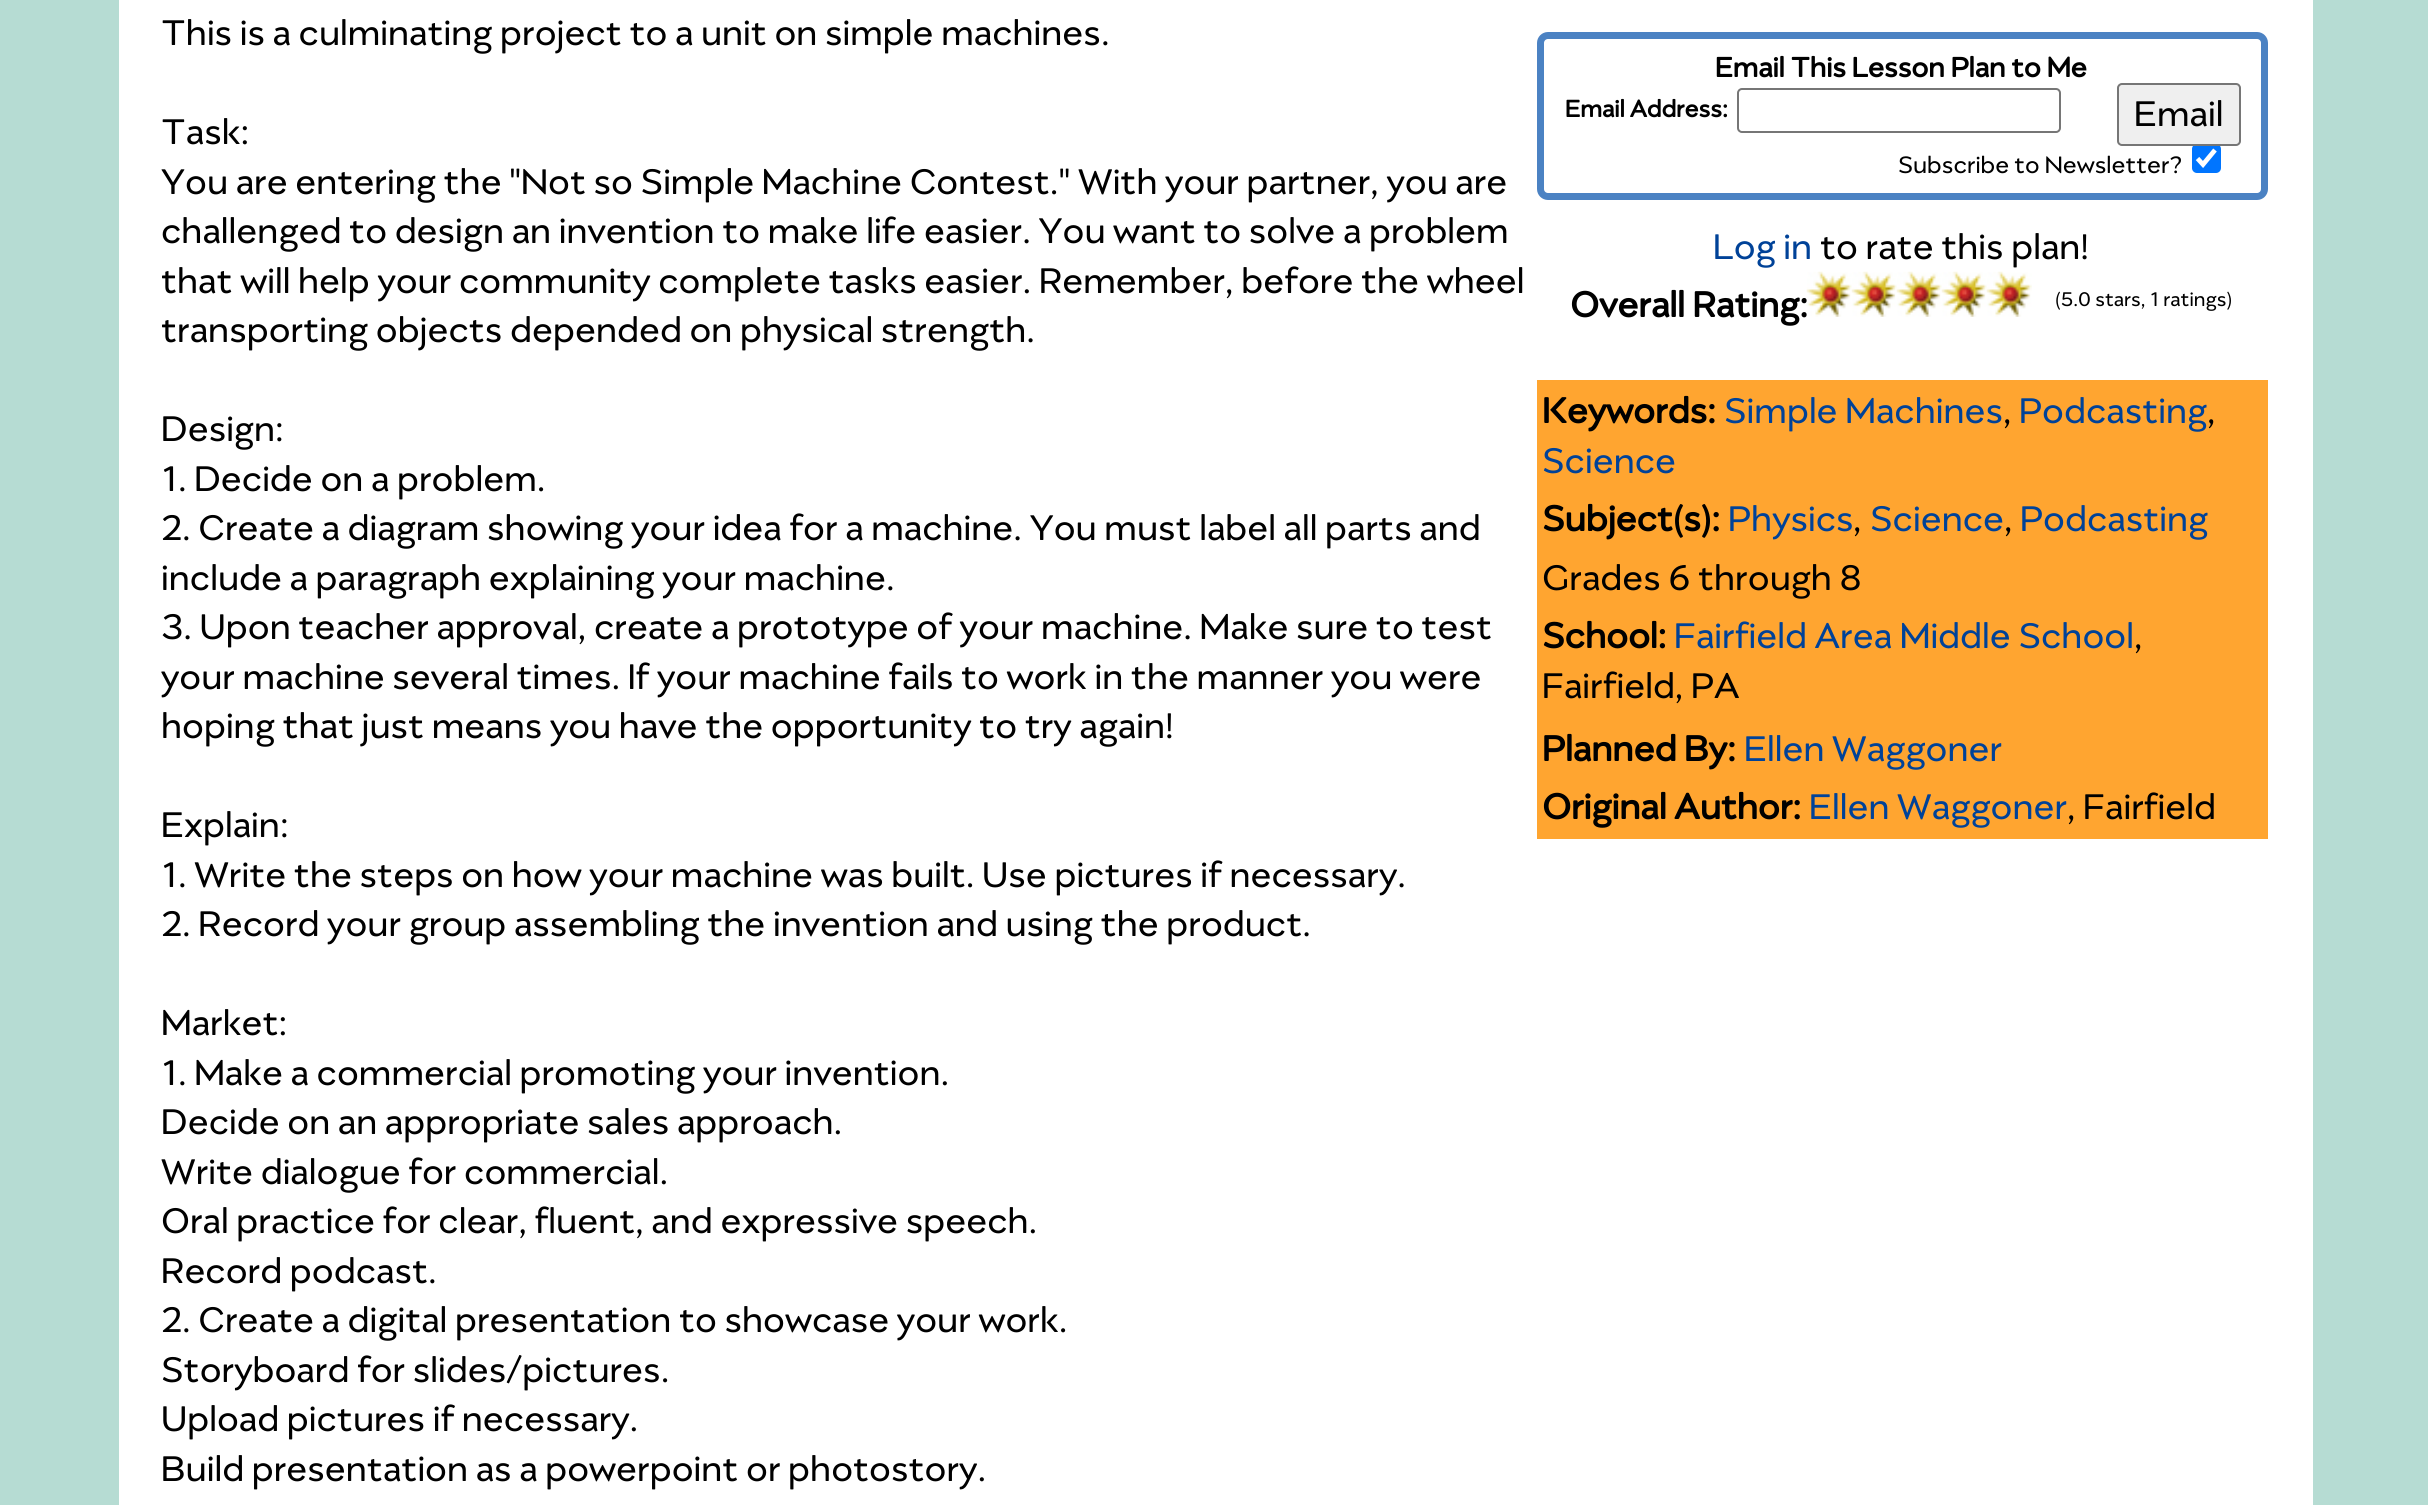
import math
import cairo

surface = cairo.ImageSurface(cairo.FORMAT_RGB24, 2428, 1505)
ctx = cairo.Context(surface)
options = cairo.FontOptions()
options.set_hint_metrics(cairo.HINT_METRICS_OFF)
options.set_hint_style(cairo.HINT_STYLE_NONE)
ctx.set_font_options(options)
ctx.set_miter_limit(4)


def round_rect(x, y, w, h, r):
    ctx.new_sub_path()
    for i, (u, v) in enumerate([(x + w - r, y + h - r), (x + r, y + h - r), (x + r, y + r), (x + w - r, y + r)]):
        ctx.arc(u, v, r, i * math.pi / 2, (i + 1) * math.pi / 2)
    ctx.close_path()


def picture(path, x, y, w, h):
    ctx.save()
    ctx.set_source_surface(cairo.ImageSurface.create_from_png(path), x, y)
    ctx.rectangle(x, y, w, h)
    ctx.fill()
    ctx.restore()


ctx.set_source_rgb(0.714, 0.863, 0.827)
ctx.paint()
ctx.set_source_rgb(1, 1, 1)
ctx.rectangle(119, 0, 2194, 1505)
ctx.fill()
ctx.select_font_face("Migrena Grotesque")
ctx.set_font_size(40.5)
ctx.set_source_rgb(0, 0, 0)
ctx.move_to(161, 45)
ctx.show_text("This is a culminating project to a unit on simple machines.")
ctx.move_to(161, 144)
ctx.show_text("Task:")
ctx.move_to(161, 194)
ctx.show_text("You are entering the \"Not so Simple Machine Contest.\" With your partner, you are")
ctx.move_to(161, 243)
ctx.show_text("challenged to design an invention to make life easier. You want to solve a problem")
ctx.move_to(161, 293)
ctx.show_text("that will help your community complete tasks easier. Remember, before the wheel")
ctx.move_to(161, 342)
ctx.show_text("transporting objects depended on physical strength.")
ctx.move_to(161, 441)
ctx.show_text("Design:")
ctx.move_to(161, 491)
ctx.show_text("1. Decide on a problem.")
ctx.move_to(161, 540)
ctx.show_text("2. Create a diagram showing your idea for a machine. You must label all parts and")
ctx.move_to(161, 590)
ctx.show_text("include a paragraph explaining your machine.")
ctx.move_to(161, 639)
ctx.show_text("3. Upon teacher approval, create a prototype of your machine. Make sure to test")
ctx.move_to(161, 689)
ctx.show_text("your machine several times. If your machine fails to work in the manner you were")
ctx.move_to(161, 738)
ctx.show_text("hoping that just means you have the opportunity to try again!")
ctx.move_to(161, 837)
ctx.show_text("Explain:")
ctx.move_to(161, 887)
ctx.show_text("1. Write the steps on how your machine was built. Use pictures if necessary.")
ctx.move_to(161, 936)
ctx.show_text("2. Record your group assembling the invention and using the product.")
ctx.move_to(161, 1035)
ctx.show_text("Market:")
ctx.move_to(161, 1085)
ctx.show_text("1. Make a commercial promoting your invention.")
ctx.move_to(161, 1134)
ctx.show_text("Decide on an appropriate sales approach.")
ctx.move_to(161, 1184)
ctx.show_text("Write dialogue for commercial.")
ctx.move_to(161, 1233)
ctx.show_text("Oral practice for clear, fluent, and expressive speech.")
ctx.move_to(161, 1283)
ctx.show_text("Record podcast.")
ctx.move_to(161, 1332)
ctx.show_text("2. Create a digital presentation to showcase your work.")
ctx.move_to(161, 1382)
ctx.show_text("Storyboard for slides/pictures.")
ctx.move_to(161, 1431)
ctx.show_text("Upload pictures if necessary.")
ctx.move_to(161, 1481)
ctx.show_text("Build presentation as a powerpoint or photostory.")
round_rect(1540.5, 35.5, 724, 161, 7.5)
ctx.set_source_rgb(0.294, 0.51, 0.765)
ctx.set_line_width(7)
ctx.stroke()
ctx.select_font_face("Migrena Grotesque", cairo.FONT_SLANT_NORMAL, cairo.FONT_WEIGHT_BOLD)
ctx.set_font_size(31.5)
ctx.set_source_rgb(0, 0, 0)
ctx.move_to(1715, 77)
ctx.show_text("Email This Lesson Plan to Me")
ctx.set_font_size(27)
ctx.move_to(1565, 117)
ctx.show_text("Email Address:")
round_rect(1738, 89, 322, 43, 4)
ctx.set_source_rgb(0.463, 0.463, 0.463)
ctx.set_line_width(2)
ctx.stroke()
ctx.set_source_rgb(0, 0.459, 1)
round_rect(2192, 144, 29, 29, 5)
ctx.fill()
ctx.set_source_rgb(0.937, 0.937, 0.937)
round_rect(2118, 84, 122, 61, 4)
ctx.fill_preserve()
ctx.set_source_rgb(0.463, 0.463, 0.463)
ctx.stroke()
ctx.select_font_face("Migrena Grotesque")
ctx.set_font_size(40.5)
ctx.set_source_rgb(0, 0, 0)
ctx.move_to(2134, 126)
ctx.show_text("Email")
ctx.set_font_size(27)
ctx.move_to(1898, 173)
ctx.show_text("Subscribe to Newsletter?")
ctx.new_path()
ctx.move_to(2197.5, 158.5)
ctx.line_to(2203, 164.5)
ctx.line_to(2215, 150)
ctx.set_source_rgb(1, 1, 1)
ctx.set_line_width(4.7)
ctx.stroke()
ctx.set_font_size(40.5)
ctx.set_source_rgb(0, 0.259, 0.596)
ctx.move_to(1713, 259)
ctx.show_text("Log in")
ctx.set_source_rgb(0, 0, 0)
ctx.move_to(1820, 259)
ctx.show_text("to rate this plan!")
ctx.select_font_face("Migrena Grotesque", cairo.FONT_SLANT_NORMAL, cairo.FONT_WEIGHT_BOLD)
ctx.move_to(1570, 317)
ctx.show_text("Overall Rating:")
picture("img1.png", 1806, 271, 46, 46)
picture("img2.png", 1851, 271, 46, 46)
picture("img2.png", 1896, 271, 46, 46)
picture("img3.png", 1941, 271, 46, 46)
picture("img3.png", 1986, 271, 46, 46)
ctx.select_font_face("Migrena Grotesque")
ctx.set_font_size(22.5)
ctx.move_to(2055, 306)
ctx.show_text("(5.0 stars, 1 ratings)")
ctx.set_source_rgb(1, 0.647, 0.188)
ctx.rectangle(1537, 380, 731, 459)
ctx.fill()
ctx.select_font_face("Migrena Grotesque", cairo.FONT_SLANT_NORMAL, cairo.FONT_WEIGHT_BOLD)
ctx.set_font_size(40.5)
ctx.set_source_rgb(0, 0, 0)
ctx.move_to(1542, 423)
ctx.show_text("Keywords:")
ctx.select_font_face("Migrena Grotesque")
ctx.set_source_rgb(0, 0.259, 0.596)
ctx.move_to(1724, 423)
ctx.show_text("Simple Machines")
ctx.set_source_rgb(0, 0, 0)
ctx.move_to(2003, 423)
ctx.show_text(",")
ctx.set_source_rgb(0, 0.259, 0.596)
ctx.move_to(2019, 423)
ctx.show_text("Podcasting")
ctx.set_source_rgb(0, 0, 0)
ctx.move_to(2207, 423)
ctx.show_text(",")
ctx.set_source_rgb(0, 0.259, 0.596)
ctx.move_to(1542, 473)
ctx.show_text("Science")
ctx.select_font_face("Migrena Grotesque", cairo.FONT_SLANT_NORMAL, cairo.FONT_WEIGHT_BOLD)
ctx.set_source_rgb(0, 0, 0)
ctx.move_to(1542, 531)
ctx.show_text("Subject(s):")
ctx.select_font_face("Migrena Grotesque")
ctx.set_source_rgb(0, 0.259, 0.596)
ctx.move_to(1728, 531)
ctx.show_text("Physics")
ctx.set_source_rgb(0, 0, 0)
ctx.move_to(1853, 531)
ctx.show_text(",")
ctx.set_source_rgb(0, 0.259, 0.596)
ctx.move_to(1870, 531)
ctx.show_text("Science")
ctx.set_source_rgb(0, 0, 0)
ctx.move_to(2004, 531)
ctx.show_text(",")
ctx.set_source_rgb(0, 0.259, 0.596)
ctx.move_to(2020, 531)
ctx.show_text("Podcasting")
ctx.set_source_rgb(0, 0, 0)
ctx.move_to(1542, 590)
ctx.show_text("Grades 6 through 8")
ctx.select_font_face("Migrena Grotesque", cairo.FONT_SLANT_NORMAL, cairo.FONT_WEIGHT_BOLD)
ctx.move_to(1542, 648)
ctx.show_text("School:")
ctx.select_font_face("Migrena Grotesque")
ctx.set_source_rgb(0, 0.259, 0.596)
ctx.move_to(1674, 648)
ctx.show_text("Fairfield Area Middle School")
ctx.set_source_rgb(0, 0, 0)
ctx.move_to(2134, 648)
ctx.show_text(",")
ctx.move_to(1542, 698)
ctx.show_text("Fairfield, PA")
ctx.select_font_face("Migrena Grotesque", cairo.FONT_SLANT_NORMAL, cairo.FONT_WEIGHT_BOLD)
ctx.move_to(1542, 761)
ctx.show_text("Planned By:")
ctx.select_font_face("Migrena Grotesque")
ctx.set_source_rgb(0, 0.259, 0.596)
ctx.move_to(1744, 761)
ctx.show_text("Ellen Waggoner")
ctx.select_font_face("Migrena Grotesque", cairo.FONT_SLANT_NORMAL, cairo.FONT_WEIGHT_BOLD)
ctx.set_source_rgb(0, 0, 0)
ctx.move_to(1542, 819)
ctx.show_text("Original Author:")
ctx.select_font_face("Migrena Grotesque")
ctx.set_source_rgb(0, 0.259, 0.596)
ctx.move_to(1809, 819)
ctx.show_text("Ellen Waggoner")
ctx.set_source_rgb(0, 0, 0)
ctx.move_to(2067, 819)
ctx.show_text(", Fairfield")
surface.write_to_png("page.png")
